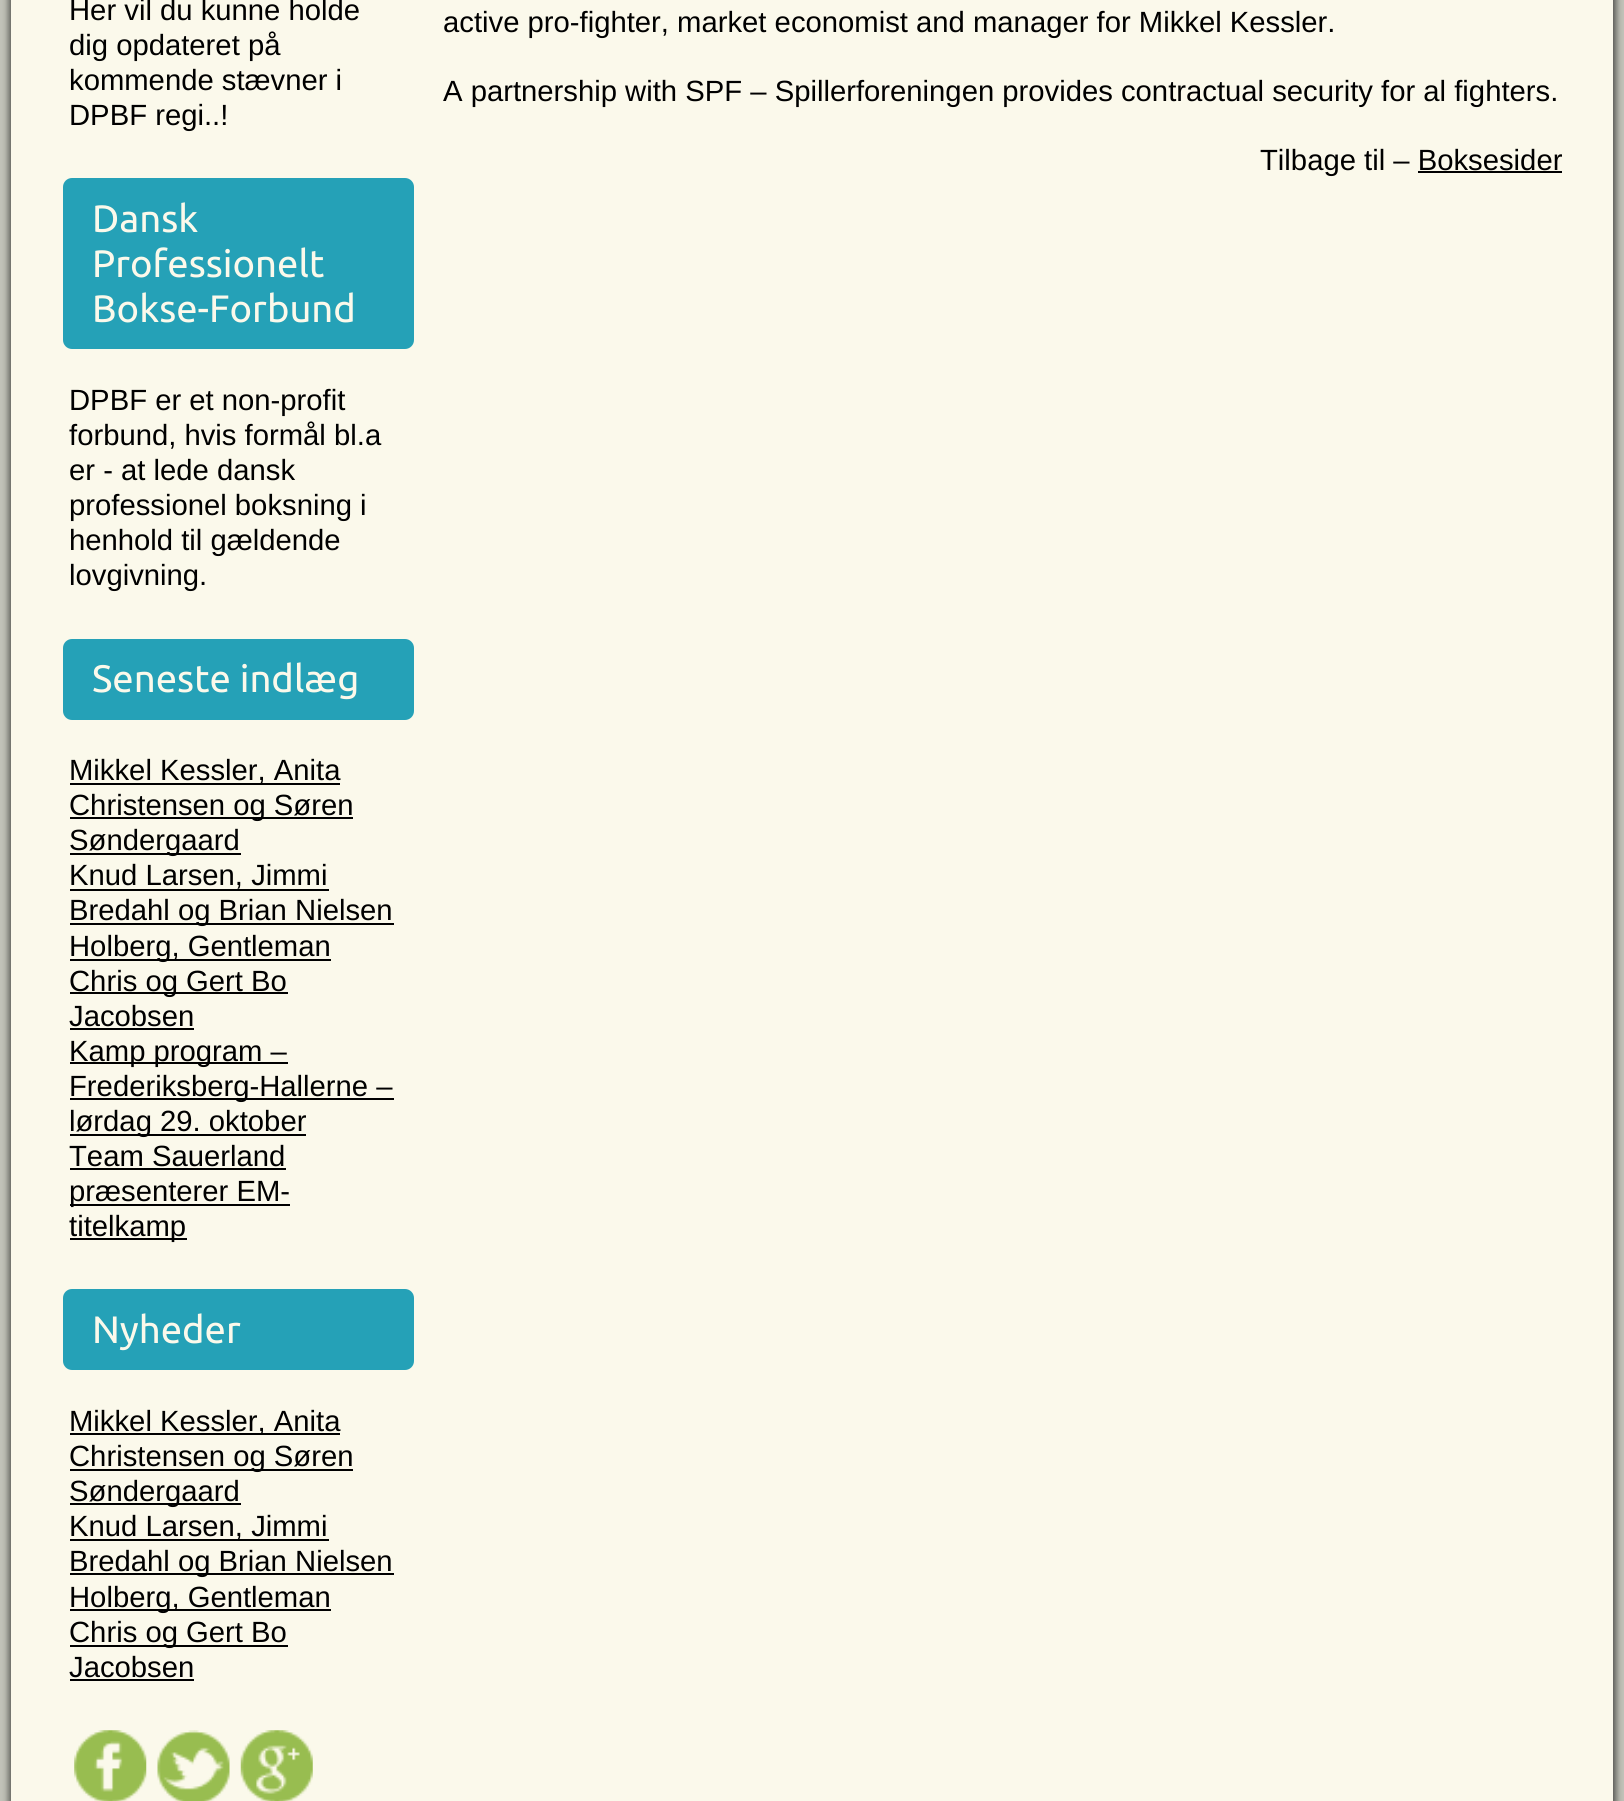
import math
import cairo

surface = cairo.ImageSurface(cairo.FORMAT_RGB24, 1624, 1801)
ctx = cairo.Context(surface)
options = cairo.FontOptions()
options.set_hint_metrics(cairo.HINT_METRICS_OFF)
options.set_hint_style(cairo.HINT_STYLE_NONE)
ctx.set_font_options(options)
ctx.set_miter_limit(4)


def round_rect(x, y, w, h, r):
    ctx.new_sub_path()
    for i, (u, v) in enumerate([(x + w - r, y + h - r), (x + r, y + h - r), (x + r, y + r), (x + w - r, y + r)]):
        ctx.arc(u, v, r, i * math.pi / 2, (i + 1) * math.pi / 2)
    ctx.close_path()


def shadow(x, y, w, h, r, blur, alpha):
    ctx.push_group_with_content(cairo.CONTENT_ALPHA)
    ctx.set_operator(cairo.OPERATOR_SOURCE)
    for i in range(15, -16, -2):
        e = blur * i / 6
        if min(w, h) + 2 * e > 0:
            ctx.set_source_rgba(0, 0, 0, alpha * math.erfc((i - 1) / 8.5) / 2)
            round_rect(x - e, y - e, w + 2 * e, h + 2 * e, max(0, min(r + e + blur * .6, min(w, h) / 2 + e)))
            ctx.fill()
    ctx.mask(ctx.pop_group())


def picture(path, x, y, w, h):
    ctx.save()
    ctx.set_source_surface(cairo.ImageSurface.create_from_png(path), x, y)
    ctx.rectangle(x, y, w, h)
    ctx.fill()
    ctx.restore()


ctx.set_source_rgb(0.761, 0.765, 0.725)
ctx.paint()
ctx.set_source_rgb(0, 0, 0)
shadow(9, -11, 1607, 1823, 0, 3.5, 0.6)
ctx.set_source_rgb(0.984, 0.976, 0.918)
ctx.rectangle(11, 0, 1602, 1801)
ctx.fill()
ctx.select_font_face("Liberation Sans")
ctx.set_font_size(29.25)
ctx.set_source_rgb(0, 0, 0)
ctx.move_to(69, 20)
ctx.show_text("Her vil du kunne holde")
ctx.move_to(69, 55)
ctx.show_text("dig opdateret på")
ctx.move_to(69, 90)
ctx.show_text("kommende stævner i")
ctx.move_to(69, 125)
ctx.show_text("DPBF regi..!")
ctx.set_source_rgb(0.145, 0.631, 0.718)
round_rect(63, 178, 351, 171, 9)
ctx.fill()
ctx.select_font_face("Ubuntu")
ctx.set_font_size(38.25)
ctx.set_source_rgb(0.984, 0.976, 0.918)
ctx.move_to(92, 232)
ctx.show_text("Dansk")
ctx.move_to(92, 277)
ctx.show_text("Professionelt")
ctx.move_to(92, 322)
ctx.show_text("Bokse-Forbund")
ctx.select_font_face("Liberation Sans")
ctx.set_font_size(29.25)
ctx.set_source_rgb(0, 0, 0)
ctx.move_to(69, 410)
ctx.show_text("DPBF er et non-profit")
ctx.move_to(69, 445)
ctx.show_text("forbund, hvis formål bl.a")
ctx.move_to(69, 480)
ctx.show_text("er - at lede dansk")
ctx.move_to(69, 515)
ctx.show_text("professionel boksning i")
ctx.move_to(69, 550)
ctx.show_text("henhold til gældende")
ctx.move_to(69, 585)
ctx.show_text("lovgivning.")
ctx.set_source_rgb(0.145, 0.631, 0.718)
round_rect(63, 639, 351, 81, 9)
ctx.fill()
ctx.select_font_face("Ubuntu")
ctx.set_font_size(38.25)
ctx.set_source_rgb(0.984, 0.976, 0.918)
ctx.move_to(92, 692)
ctx.show_text("Seneste indlæg")
ctx.set_source_rgb(0, 0, 0)
ctx.rectangle(70, 783, 270, 2)
ctx.fill()
ctx.select_font_face("Liberation Sans")
ctx.set_font_size(29.25)
ctx.move_to(69, 780)
ctx.show_text("Mikkel Kessler, Anita")
ctx.rectangle(70, 817, 283, 2)
ctx.fill()
ctx.move_to(69, 815)
ctx.show_text("Christensen og Søren")
ctx.rectangle(70, 853, 171, 2)
ctx.fill()
ctx.move_to(69, 850)
ctx.show_text("Søndergaard")
ctx.move_to(69, 885)
ctx.show_text("Knud Larsen, Jimmi")
ctx.rectangle(70, 889, 259, 2)
ctx.fill()
ctx.rectangle(70, 923, 324, 2)
ctx.fill()
ctx.move_to(69, 920)
ctx.show_text("Bredahl og Brian Nielsen")
ctx.rectangle(70, 959, 261, 2)
ctx.fill()
ctx.move_to(69, 956)
ctx.show_text("Holberg, Gentleman")
ctx.rectangle(70, 992, 218, 2)
ctx.fill()
ctx.move_to(69, 991)
ctx.show_text("Chris og Gert Bo")
ctx.move_to(69, 1026)
ctx.show_text("Jacobsen")
ctx.rectangle(70, 1028, 124, 2)
ctx.fill()
ctx.rectangle(70, 1062, 218, 2)
ctx.fill()
ctx.move_to(69, 1061)
ctx.show_text("Kamp program –")
ctx.rectangle(70, 1098, 324, 2)
ctx.fill()
ctx.move_to(69, 1096)
ctx.show_text("Frederiksberg-Hallerne –")
ctx.rectangle(70, 1134, 236, 2)
ctx.fill()
ctx.move_to(69, 1131)
ctx.show_text("lørdag 29. oktober")
ctx.move_to(69, 1166)
ctx.show_text("Team Sauerland")
ctx.rectangle(70, 1168, 216, 2)
ctx.fill()
ctx.rectangle(70, 1204, 220, 2)
ctx.fill()
ctx.move_to(69, 1201)
ctx.show_text("præsenterer EM-")
ctx.rectangle(70, 1238, 117, 2)
ctx.fill()
ctx.move_to(69, 1236)
ctx.show_text("titelkamp")
ctx.set_source_rgb(0.145, 0.631, 0.718)
round_rect(63, 1289, 351, 81, 9)
ctx.fill()
ctx.select_font_face("Ubuntu")
ctx.set_font_size(38.25)
ctx.set_source_rgb(0.984, 0.976, 0.918)
ctx.move_to(92, 1343)
ctx.show_text("Nyheder")
ctx.set_source_rgb(0, 0, 0)
ctx.rectangle(70, 1433, 270, 2)
ctx.fill()
ctx.select_font_face("Liberation Sans")
ctx.set_font_size(29.25)
ctx.move_to(69, 1431)
ctx.show_text("Mikkel Kessler, Anita")
ctx.rectangle(70, 1469, 283, 2)
ctx.fill()
ctx.move_to(69, 1466)
ctx.show_text("Christensen og Søren")
ctx.rectangle(70, 1503, 171, 2)
ctx.fill()
ctx.move_to(69, 1501)
ctx.show_text("Søndergaard")
ctx.rectangle(70, 1539, 259, 2)
ctx.fill()
ctx.move_to(69, 1536)
ctx.show_text("Knud Larsen, Jimmi")
ctx.rectangle(70, 1573, 324, 2)
ctx.fill()
ctx.move_to(69, 1571)
ctx.show_text("Bredahl og Brian Nielsen")
ctx.rectangle(70, 1609, 261, 2)
ctx.fill()
ctx.move_to(69, 1607)
ctx.show_text("Holberg, Gentleman")
ctx.rectangle(70, 1645, 218, 2)
ctx.fill()
ctx.move_to(69, 1642)
ctx.show_text("Chris og Gert Bo")
ctx.move_to(69, 1677)
ctx.show_text("Jacobsen")
ctx.rectangle(70, 1679, 124, 2)
ctx.fill()
picture("img1.png", 74, 1730, 73, 71)
picture("img2.png", 157, 1730, 73, 71)
picture("img3.png", 240, 1730, 73, 71)
ctx.move_to(443, 32)
ctx.show_text("active pro-fighter, market economist and manager for Mikkel Kessler.")
ctx.move_to(443, 101)
ctx.show_text("A partnership with SPF – Spillerforeningen provides contractual security for al fighters.")
ctx.move_to(1260, 170)
ctx.show_text("Tilbage til – Boksesider")
ctx.rectangle(1418, 171, 144, 2)
ctx.fill()
surface.write_to_png("page.png")
